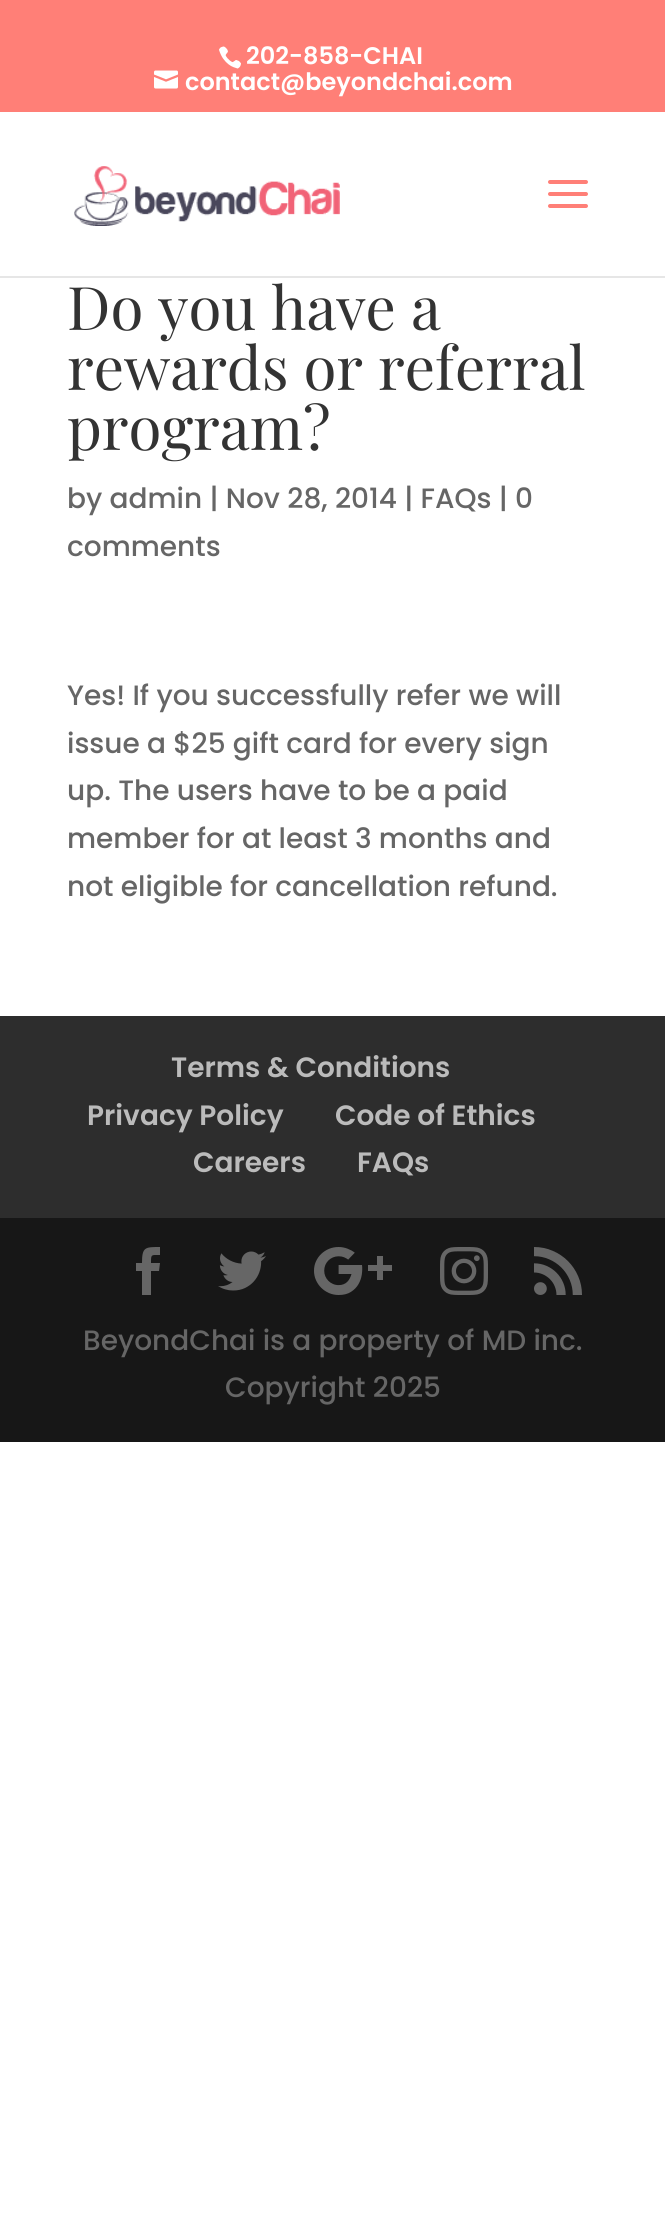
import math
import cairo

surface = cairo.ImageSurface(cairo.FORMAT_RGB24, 665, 2227)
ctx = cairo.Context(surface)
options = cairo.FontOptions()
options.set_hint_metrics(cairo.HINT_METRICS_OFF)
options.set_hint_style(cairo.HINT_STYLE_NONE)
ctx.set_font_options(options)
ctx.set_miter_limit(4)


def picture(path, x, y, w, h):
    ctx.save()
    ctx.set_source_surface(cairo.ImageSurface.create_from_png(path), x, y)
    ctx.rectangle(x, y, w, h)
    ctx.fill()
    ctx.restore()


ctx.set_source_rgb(1, 1, 1)
ctx.paint()
ctx.set_source_rgb(1, 0.498, 0.467)
ctx.rectangle(0, 0, 665, 112)
ctx.fill()
picture("img1.png", 219, 46, 22, 23)
ctx.select_font_face("Poppins SemiBold")
ctx.set_font_size(24)
ctx.set_source_rgb(1, 1, 1)
ctx.move_to(246, 64)
ctx.show_text("202-858-CHAI")
picture("img2.png", 154, 70, 24, 19)
ctx.move_to(185, 90)
ctx.show_text("contact@beyondchai.com")
ctx.set_source_rgb(0.902, 0.902, 0.902)
ctx.rectangle(0, 276, 665, 2)
ctx.fill()
picture("img3.png", 74, 166, 266, 60)
picture("img4.png", 548, 180, 40, 28)
ctx.select_font_face("Playfair Display")
ctx.set_font_size(60)
ctx.set_source_rgb(0.2, 0.2, 0.2)
ctx.move_to(67, 330)
ctx.show_text("Do you have a")
ctx.move_to(67, 390)
ctx.show_text("rewards or referral")
ctx.move_to(67, 450)
ctx.show_text("program?")
ctx.select_font_face("Poppins Medium")
ctx.set_font_size(28)
ctx.set_source_rgb(0.4, 0.4, 0.4)
ctx.move_to(67, 508)
ctx.show_text("by admin | Nov 28, 2014 | FAQs | 0")
ctx.move_to(67, 556)
ctx.show_text("comments")
ctx.move_to(67, 705)
ctx.show_text("Yes! If you successfully refer we will")
ctx.move_to(67, 753)
ctx.show_text("issue a $25 gift card for every sign")
ctx.move_to(67, 800)
ctx.show_text("up. The users have to be a paid")
ctx.move_to(67, 848)
ctx.show_text("member for at least 3 months and")
ctx.move_to(67, 896)
ctx.show_text("not eligible for cancellation refund.")
ctx.set_source_rgb(0.176, 0.176, 0.176)
ctx.rectangle(0, 1016, 665, 202)
ctx.fill()
ctx.select_font_face("Poppins SemiBold")
ctx.set_source_rgb(0.733, 0.733, 0.733)
ctx.move_to(171, 1077)
ctx.show_text("Terms & Conditions")
ctx.move_to(87, 1125)
ctx.show_text("Privacy Policy")
ctx.move_to(335, 1125)
ctx.show_text("Code of Ethics")
ctx.move_to(193, 1172)
ctx.show_text("Careers")
ctx.move_to(357, 1172)
ctx.show_text("FAQs")
ctx.set_source_rgb(0.09, 0.09, 0.09)
ctx.rectangle(0, 1218, 665, 224)
ctx.fill()
ctx.set_source_rgb(0.4, 0.4, 0.4)
ctx.new_path()
ctx.move_to(142, 1295)
ctx.line_to(151, 1295)
ctx.line_to(151, 1271)
ctx.line_to(159, 1271)
ctx.line_to(160, 1263)
ctx.line_to(151, 1263)
ctx.curve_to(151, 1254, 151, 1255, 160, 1255)
ctx.line_to(160, 1247)
ctx.curve_to(145, 1247, 142, 1247, 142, 1263)
ctx.line_to(136, 1263)
ctx.line_to(136, 1271)
ctx.line_to(142, 1271)
ctx.close_path()
ctx.fill()
picture("img5.png", 218, 1251, 48, 40)
picture("img6.png", 314, 1247, 78, 48)
picture("img7.png", 440, 1247, 48, 48)
picture("img8.png", 534, 1247, 48, 48)
ctx.select_font_face("Poppins Medium")
ctx.move_to(83, 1350)
ctx.show_text("BeyondChai is a property of MD inc.")
ctx.move_to(225, 1397)
ctx.show_text("Copyright 2025")
surface.write_to_png("page.png")
